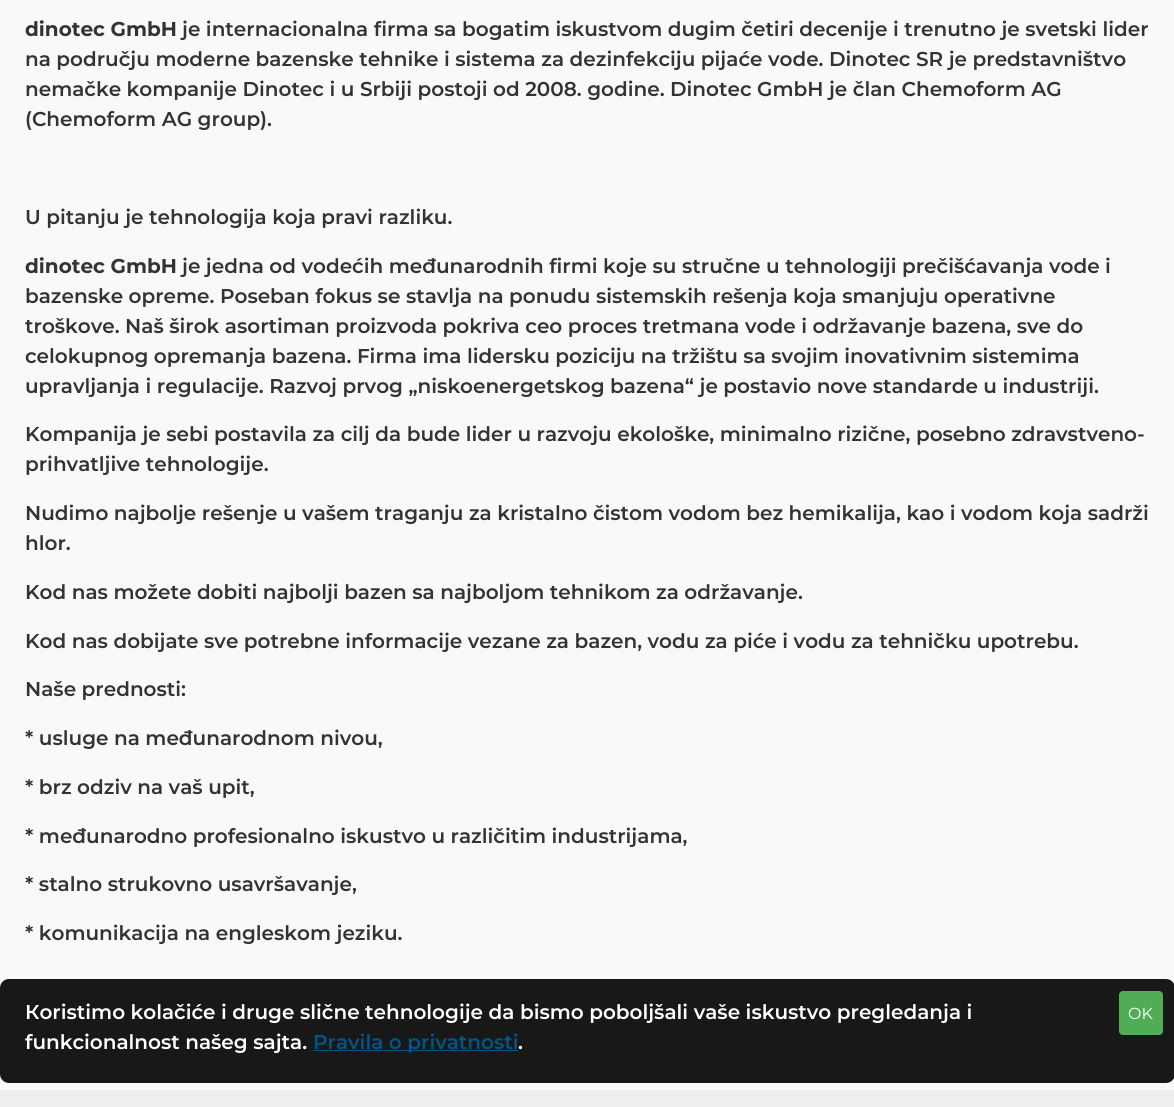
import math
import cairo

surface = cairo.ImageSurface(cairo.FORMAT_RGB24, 1174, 1107)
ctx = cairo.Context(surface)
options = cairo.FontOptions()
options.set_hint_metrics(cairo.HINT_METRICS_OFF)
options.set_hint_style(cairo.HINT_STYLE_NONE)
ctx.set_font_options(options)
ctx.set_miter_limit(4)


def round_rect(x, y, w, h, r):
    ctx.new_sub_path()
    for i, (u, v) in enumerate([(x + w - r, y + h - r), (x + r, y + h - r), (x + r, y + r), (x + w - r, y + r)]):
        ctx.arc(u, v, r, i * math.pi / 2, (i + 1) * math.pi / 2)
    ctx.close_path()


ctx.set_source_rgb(0.973, 0.973, 0.973)
ctx.paint()
ctx.select_font_face("Montserrat", cairo.FONT_SLANT_NORMAL, cairo.FONT_WEIGHT_BOLD)
ctx.set_font_size(20)
ctx.set_source_rgb(0.2, 0.2, 0.2)
ctx.move_to(25, 36)
ctx.show_text("dinotec GmbH")
ctx.select_font_face("Montserrat SemiBold")
ctx.move_to(182, 36)
ctx.show_text("je internacionalna firma sa bogatim iskustvom dugim četiri decenije i trenutno je svetski lider")
ctx.move_to(25, 66)
ctx.show_text("na području moderne bazenske tehnike i sistema za dezinfekciju pijaće vode. Dinotec SR je predstavništvo")
ctx.move_to(25, 96)
ctx.show_text("nemačke kompanije Dinotec i u Srbiji postoji od 2008. godine. Dinotec GmbH je član Chemoform AG")
ctx.move_to(25, 126)
ctx.show_text("(Chemoform AG group).")
ctx.move_to(25, 224)
ctx.show_text("U pitanju je tehnologija koja pravi razliku.")
ctx.select_font_face("Montserrat", cairo.FONT_SLANT_NORMAL, cairo.FONT_WEIGHT_BOLD)
ctx.move_to(25, 273)
ctx.show_text("dinotec GmbH")
ctx.select_font_face("Montserrat SemiBold")
ctx.move_to(182, 273)
ctx.show_text("je jedna od vodećih međunarodnih firmi koje su stručne u tehnologiji prečišćavanja vode i")
ctx.move_to(25, 303)
ctx.show_text("bazenske opreme. Poseban fokus se stavlja na ponudu sistemskih rešenja koja smanjuju operativne")
ctx.move_to(25, 333)
ctx.show_text("troškove. Naš širok asortiman proizvoda pokriva ceo proces tretmana vode i održavanje bazena, sve do")
ctx.move_to(25, 363)
ctx.show_text("celokupnog opremanja bazena. Firma ima lidersku poziciju na tržištu sa svojim inovativnim sistemima")
ctx.move_to(25, 393)
ctx.show_text("upravljanja i regulacije. Razvoj prvog „niskoenergetskog bazena“ je postavio nove standarde u industriji.")
ctx.move_to(25, 441)
ctx.show_text("Kompanija je sebi postavila za cilj da bude lider u razvoju ekološke, minimalno rizične, posebno zdravstveno-")
ctx.move_to(25, 471)
ctx.show_text("prihvatljive tehnologije.")
ctx.move_to(25, 520)
ctx.show_text("Nudimo najbolje rešenje u vašem traganju za kristalno čistom vodom bez hemikalija, kao i vodom koja sadrži")
ctx.move_to(25, 550)
ctx.show_text("hlor.")
ctx.move_to(25, 599)
ctx.show_text("Kod nas možete dobiti najbolji bazen sa najboljom tehnikom za održavanje.")
ctx.move_to(25, 648)
ctx.show_text("Kod nas dobijate sve potrebne informacije vezane za bazen, vodu za piće i vodu za tehničku upotrebu.")
ctx.move_to(25, 696)
ctx.show_text("Naše prednosti:")
ctx.move_to(25, 745)
ctx.show_text("* usluge na međunarodnom nivou,")
ctx.move_to(25, 794)
ctx.show_text("* brz odziv na vaš upit,")
ctx.move_to(25, 843)
ctx.show_text("* međunarodno profesionalno iskustvo u različitim industrijama,")
ctx.move_to(25, 891)
ctx.show_text("* stalno strukovno usavršavanje,")
ctx.move_to(25, 940)
ctx.show_text("* komunikacija na engleskom jeziku.")
ctx.set_source_rgb(0.933, 0.933, 0.933)
ctx.rectangle(0, 1090, 1174, 17)
ctx.fill()
ctx.set_source_rgba(0, 0, 0, 0.9)
round_rect(0, 979, 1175, 104, 9)
ctx.fill()
ctx.set_source_rgb(1, 1, 1)
ctx.move_to(25, 1019)
ctx.show_text("Кoristimo kolačiće i druge slične tehnologije da bismo poboljšali vaše iskustvo pregledanja i")
ctx.move_to(25, 1049)
ctx.show_text("funkcionalnost našeg sajta.")
ctx.set_source_rgb(0, 0.337, 0.529)
ctx.rectangle(313, 1050, 205, 1)
ctx.fill()
ctx.move_to(313, 1049)
ctx.show_text("Pravila o privatnosti")
ctx.set_source_rgb(1, 1, 1)
ctx.move_to(518, 1049)
ctx.show_text(".")
ctx.set_source_rgb(0.314, 0.678, 0.333)
round_rect(1119, 991, 44, 44, 4)
ctx.fill()
ctx.select_font_face("Montserrat")
ctx.set_font_size(16)
ctx.set_source_rgb(1, 1, 1)
ctx.move_to(1128, 1019)
ctx.show_text("OK")
surface.write_to_png("page.png")
